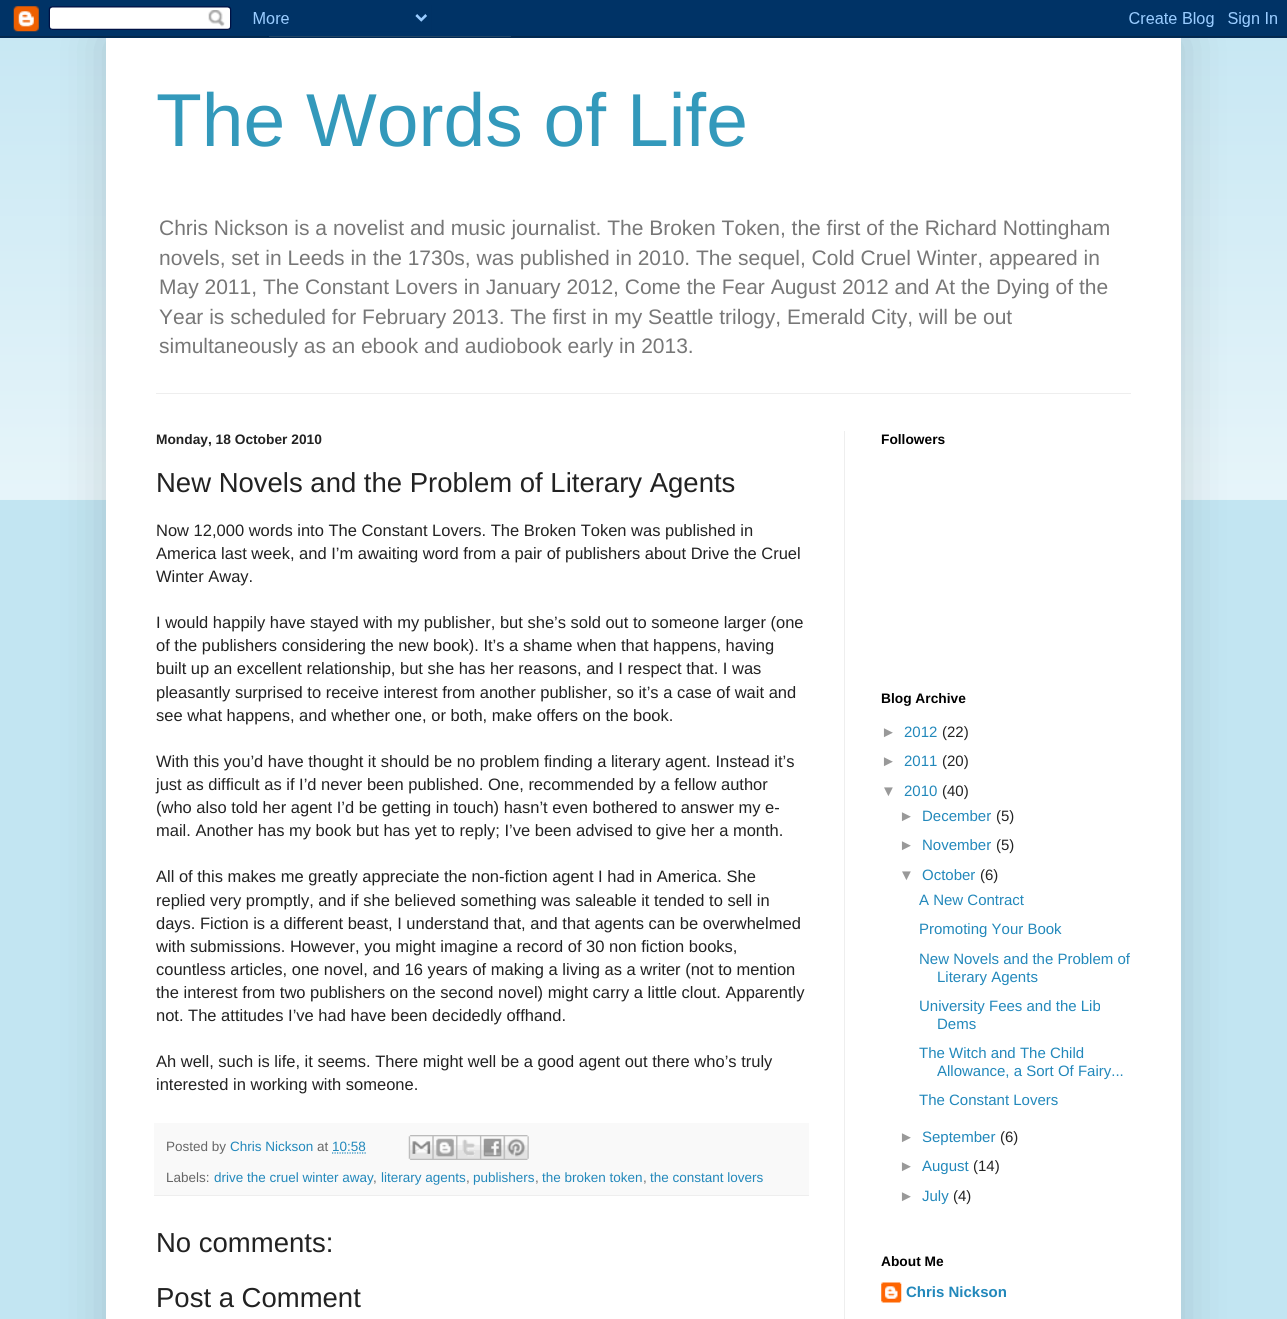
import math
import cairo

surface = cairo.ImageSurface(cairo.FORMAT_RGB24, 1287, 1319)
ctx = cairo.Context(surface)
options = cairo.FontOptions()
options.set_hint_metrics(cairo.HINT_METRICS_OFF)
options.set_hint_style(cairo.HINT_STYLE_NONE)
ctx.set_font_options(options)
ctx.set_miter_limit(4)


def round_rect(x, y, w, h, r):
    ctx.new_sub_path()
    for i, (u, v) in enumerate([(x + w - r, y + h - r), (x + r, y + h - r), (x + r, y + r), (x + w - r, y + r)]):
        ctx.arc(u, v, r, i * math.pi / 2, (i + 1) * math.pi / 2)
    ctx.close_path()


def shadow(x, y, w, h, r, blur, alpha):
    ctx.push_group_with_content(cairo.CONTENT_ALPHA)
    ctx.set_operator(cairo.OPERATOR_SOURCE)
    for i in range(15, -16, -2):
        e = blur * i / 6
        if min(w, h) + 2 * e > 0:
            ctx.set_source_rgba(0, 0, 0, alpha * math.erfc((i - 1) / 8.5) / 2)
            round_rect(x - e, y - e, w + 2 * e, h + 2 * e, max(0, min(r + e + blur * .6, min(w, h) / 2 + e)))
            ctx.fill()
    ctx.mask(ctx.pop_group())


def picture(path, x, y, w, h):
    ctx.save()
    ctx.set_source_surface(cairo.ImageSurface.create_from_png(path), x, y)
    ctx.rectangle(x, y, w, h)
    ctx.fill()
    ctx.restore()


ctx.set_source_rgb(0.761, 0.898, 0.949)
ctx.paint()
picture("img2.png", 0, 36, 1287, 464)
ctx.set_source_rgb(0, 0, 0)
shadow(106, 38, 1075, 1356, 0, 25, 0.15)
picture("img1.png", 0, 0, 1287, 38)
ctx.set_source_rgb(1, 1, 1)
ctx.rectangle(106, 38, 1075, 1281)
ctx.fill()
ctx.select_font_face("Liberation Sans")
ctx.set_font_size(75)
ctx.set_source_rgb(0.2, 0.6, 0.733)
ctx.move_to(156, 146)
ctx.show_text("The Words of Life")
ctx.set_font_size(21)
ctx.set_source_rgb(0.467, 0.467, 0.467)
ctx.move_to(159, 235)
ctx.show_text("Chris Nickson is a novelist and music journalist. The Broken Token, the first of the Richard Nottingham")
ctx.move_to(159, 265)
ctx.show_text("novels, set in Leeds in the 1730s, was published in 2010. The sequel, Cold Cruel Winter, appeared in")
ctx.move_to(159, 294)
ctx.show_text("May 2011, The Constant Lovers in January 2012, Come the Fear August 2012 and At the Dying of the")
ctx.move_to(159, 324)
ctx.show_text("Year is scheduled for February 2013. The first in my Seattle trilogy, Emerald City, will be out")
ctx.move_to(159, 353)
ctx.show_text("simultaneously as an ebook and audiobook early in 2013.")
ctx.set_source_rgb(0.933, 0.933, 0.933)
ctx.rectangle(156, 393, 975, 1)
ctx.fill()
ctx.rectangle(844, 431, 1, 888)
ctx.fill()
ctx.select_font_face("Liberation Sans", cairo.FONT_SLANT_NORMAL, cairo.FONT_WEIGHT_BOLD)
ctx.set_font_size(13.75)
ctx.set_source_rgb(0.133, 0.133, 0.133)
ctx.move_to(156, 444)
ctx.show_text("Monday, 18 October 2010")
ctx.select_font_face("Liberation Sans")
ctx.set_font_size(27.5)
ctx.move_to(156, 492)
ctx.show_text("New Novels and the Problem of Literary Agents")
ctx.set_font_size(16.5)
ctx.move_to(156, 536)
ctx.show_text("Now 12,000 words into The Constant Lovers. The Broken Token was published in")
ctx.move_to(156, 559)
ctx.show_text("America last week, and I’m awaiting word from a pair of publishers about Drive the Cruel")
ctx.move_to(156, 582)
ctx.show_text("Winter Away.")
ctx.move_to(156, 628)
ctx.show_text("I would happily have stayed with my publisher, but she’s sold out to someone larger (one")
ctx.move_to(156, 651)
ctx.show_text("of the publishers considering the new book). It’s a shame when that happens, having")
ctx.move_to(156, 674)
ctx.show_text("built up an excellent relationship, but she has her reasons, and I respect that. I was")
ctx.move_to(156, 698)
ctx.show_text("pleasantly surprised to receive interest from another publisher, so it’s a case of wait and")
ctx.move_to(156, 721)
ctx.show_text("see what happens, and whether one, or both, make offers on the book.")
ctx.move_to(156, 767)
ctx.show_text("With this you’d have thought it should be no problem finding a literary agent. Instead it’s")
ctx.move_to(156, 790)
ctx.show_text("just as difficult as if I’d never been published. One, recommended by a fellow author")
ctx.move_to(156, 813)
ctx.show_text("(who also told her agent I’d be getting in touch) hasn’t even bothered to answer my e-")
ctx.move_to(156, 836)
ctx.show_text("mail. Another has my book but has yet to reply; I’ve been advised to give her a month.")
ctx.move_to(156, 882)
ctx.show_text("All of this makes me greatly appreciate the non-fiction agent I had in America. She")
ctx.move_to(156, 906)
ctx.show_text("replied very promptly, and if she believed something was saleable it tended to sell in")
ctx.move_to(156, 929)
ctx.show_text("days. Fiction is a different beast, I understand that, and that agents can be overwhelmed")
ctx.move_to(156, 952)
ctx.show_text("with submissions. However, you might imagine a record of 30 non fiction books,")
ctx.move_to(156, 975)
ctx.show_text("countless articles, one novel, and 16 years of making a living as a writer (not to mention")
ctx.move_to(156, 998)
ctx.show_text("the interest from two publishers on the second novel) might carry a little clout. Apparently")
ctx.move_to(156, 1021)
ctx.show_text("not. The attitudes I’ve had have been decidedly offhand.")
ctx.move_to(156, 1067)
ctx.show_text("Ah well, such is life, it seems. There might well be a good agent out there who’s truly")
ctx.move_to(156, 1090)
ctx.show_text("interested in working with someone.")
ctx.set_source_rgb(0.976, 0.976, 0.976)
ctx.rectangle(154, 1123, 655, 72)
ctx.fill()
ctx.set_source_rgb(0.933, 0.933, 0.933)
ctx.rectangle(154, 1195, 655, 1)
ctx.fill()
ctx.set_font_size(13.5)
ctx.set_source_rgb(0.4, 0.4, 0.4)
ctx.move_to(166, 1151)
ctx.show_text("Posted by")
ctx.set_source_rgb(0.133, 0.533, 0.733)
ctx.move_to(230, 1151)
ctx.show_text("Chris Nickson")
ctx.set_source_rgb(0.4, 0.4, 0.4)
ctx.move_to(317, 1151)
ctx.show_text("at")
ctx.set_source_rgb(0.133, 0.533, 0.733)
ctx.move_to(332, 1151)
ctx.show_text("10:58")
ctx.new_path()
ctx.move_to(332, 1153)
ctx.line_to(366, 1153)
ctx.set_line_width(1.2)
ctx.set_dash([1.25, 1.25])
ctx.stroke()
picture("img3.png", 408, 1135, 25, 25)
picture("img4.png", 432, 1135, 25, 25)
picture("img5.png", 456, 1135, 24, 25)
picture("img6.png", 480, 1135, 24, 25)
picture("img7.png", 503, 1135, 26, 25)
ctx.set_source_rgb(0.4, 0.4, 0.4)
ctx.move_to(166, 1182)
ctx.show_text("Labels:")
ctx.set_source_rgb(0.133, 0.533, 0.733)
ctx.move_to(214, 1182)
ctx.show_text("drive the cruel winter away")
ctx.set_source_rgb(0.4, 0.4, 0.4)
ctx.move_to(373, 1182)
ctx.show_text(",")
ctx.set_source_rgb(0.133, 0.533, 0.733)
ctx.move_to(381, 1182)
ctx.show_text("literary agents")
ctx.set_source_rgb(0.4, 0.4, 0.4)
ctx.move_to(466, 1182)
ctx.show_text(",")
ctx.set_source_rgb(0.133, 0.533, 0.733)
ctx.move_to(473, 1182)
ctx.show_text("publishers")
ctx.set_source_rgb(0.4, 0.4, 0.4)
ctx.move_to(535, 1182)
ctx.show_text(",")
ctx.set_source_rgb(0.133, 0.533, 0.733)
ctx.move_to(542, 1182)
ctx.show_text("the broken token")
ctx.set_source_rgb(0.4, 0.4, 0.4)
ctx.move_to(643, 1182)
ctx.show_text(",")
ctx.set_source_rgb(0.133, 0.533, 0.733)
ctx.move_to(650, 1182)
ctx.show_text("the constant lovers")
ctx.set_font_size(27.5)
ctx.set_source_rgb(0.133, 0.133, 0.133)
ctx.move_to(156, 1252)
ctx.show_text("No comments:")
ctx.move_to(156, 1307)
ctx.show_text("Post a Comment")
ctx.select_font_face("Liberation Sans", cairo.FONT_SLANT_NORMAL, cairo.FONT_WEIGHT_BOLD)
ctx.set_font_size(13.75)
ctx.set_source_rgb(0, 0, 0)
ctx.move_to(881, 444)
ctx.show_text("Followers")
ctx.move_to(881, 703)
ctx.show_text("Blog Archive")
ctx.select_font_face("Liberation Sans")
ctx.set_font_size(15)
ctx.set_source_rgb(0.6, 0.6, 0.6)
ctx.move_to(881, 737)
ctx.show_text("►")
ctx.set_source_rgb(0.133, 0.533, 0.733)
ctx.move_to(904, 737)
ctx.show_text("2012")
ctx.set_source_rgb(0.133, 0.133, 0.133)
ctx.move_to(942, 737)
ctx.show_text("(22)")
ctx.set_source_rgb(0.6, 0.6, 0.6)
ctx.move_to(881, 766)
ctx.show_text("►")
ctx.set_source_rgb(0.133, 0.533, 0.733)
ctx.move_to(904, 766)
ctx.show_text("2011")
ctx.set_source_rgb(0.133, 0.133, 0.133)
ctx.move_to(942, 766)
ctx.show_text("(20)")
ctx.set_source_rgb(0.6, 0.6, 0.6)
ctx.move_to(881, 796)
ctx.show_text("▼")
ctx.set_source_rgb(0.133, 0.533, 0.733)
ctx.move_to(904, 796)
ctx.show_text("2010")
ctx.set_source_rgb(0.133, 0.133, 0.133)
ctx.move_to(942, 796)
ctx.show_text("(40)")
ctx.set_source_rgb(0.6, 0.6, 0.6)
ctx.move_to(899, 821)
ctx.show_text("►")
ctx.set_source_rgb(0.133, 0.533, 0.733)
ctx.move_to(922, 821)
ctx.show_text("December")
ctx.set_source_rgb(0.133, 0.133, 0.133)
ctx.move_to(996, 821)
ctx.show_text("(5)")
ctx.set_source_rgb(0.6, 0.6, 0.6)
ctx.move_to(899, 850)
ctx.show_text("►")
ctx.set_source_rgb(0.133, 0.533, 0.733)
ctx.move_to(922, 850)
ctx.show_text("November")
ctx.set_source_rgb(0.133, 0.133, 0.133)
ctx.move_to(996, 850)
ctx.show_text("(5)")
ctx.set_source_rgb(0.6, 0.6, 0.6)
ctx.move_to(899, 880)
ctx.show_text("▼")
ctx.set_source_rgb(0.133, 0.533, 0.733)
ctx.move_to(922, 880)
ctx.show_text("October")
ctx.set_source_rgb(0.133, 0.133, 0.133)
ctx.move_to(980, 880)
ctx.show_text("(6)")
ctx.set_source_rgb(0.133, 0.533, 0.733)
ctx.move_to(919, 905)
ctx.show_text("A New Contract")
ctx.move_to(919, 934)
ctx.show_text("Promoting Your Book")
ctx.move_to(919, 964)
ctx.show_text("New Novels and the Problem of")
ctx.move_to(937, 982)
ctx.show_text("Literary Agents")
ctx.move_to(919, 1011)
ctx.show_text("University Fees and the Lib")
ctx.move_to(937, 1029)
ctx.show_text("Dems")
ctx.move_to(919, 1058)
ctx.show_text("The Witch and The Child")
ctx.move_to(937, 1076)
ctx.show_text("Allowance, a Sort Of Fairy...")
ctx.move_to(919, 1105)
ctx.show_text("The Constant Lovers")
ctx.set_source_rgb(0.6, 0.6, 0.6)
ctx.move_to(899, 1142)
ctx.show_text("►")
ctx.set_source_rgb(0.133, 0.533, 0.733)
ctx.move_to(922, 1142)
ctx.show_text("September")
ctx.set_source_rgb(0.133, 0.133, 0.133)
ctx.move_to(1000, 1142)
ctx.show_text("(6)")
ctx.set_source_rgb(0.6, 0.6, 0.6)
ctx.move_to(899, 1171)
ctx.show_text("►")
ctx.set_source_rgb(0.133, 0.533, 0.733)
ctx.move_to(922, 1171)
ctx.show_text("August")
ctx.set_source_rgb(0.133, 0.133, 0.133)
ctx.move_to(973, 1171)
ctx.show_text("(14)")
ctx.set_source_rgb(0.6, 0.6, 0.6)
ctx.move_to(899, 1201)
ctx.show_text("►")
ctx.set_source_rgb(0.133, 0.533, 0.733)
ctx.move_to(922, 1201)
ctx.show_text("July")
ctx.set_source_rgb(0.133, 0.133, 0.133)
ctx.move_to(953, 1201)
ctx.show_text("(4)")
ctx.select_font_face("Liberation Sans", cairo.FONT_SLANT_NORMAL, cairo.FONT_WEIGHT_BOLD)
ctx.set_font_size(13.75)
ctx.set_source_rgb(0, 0, 0)
ctx.move_to(881, 1266)
ctx.show_text("About Me")
picture("img8.png", 881, 1282, 21, 21)
ctx.set_font_size(15)
ctx.set_source_rgb(0.133, 0.533, 0.733)
ctx.move_to(906, 1297)
ctx.show_text("Chris Nickson")
surface.write_to_png("page.png")
